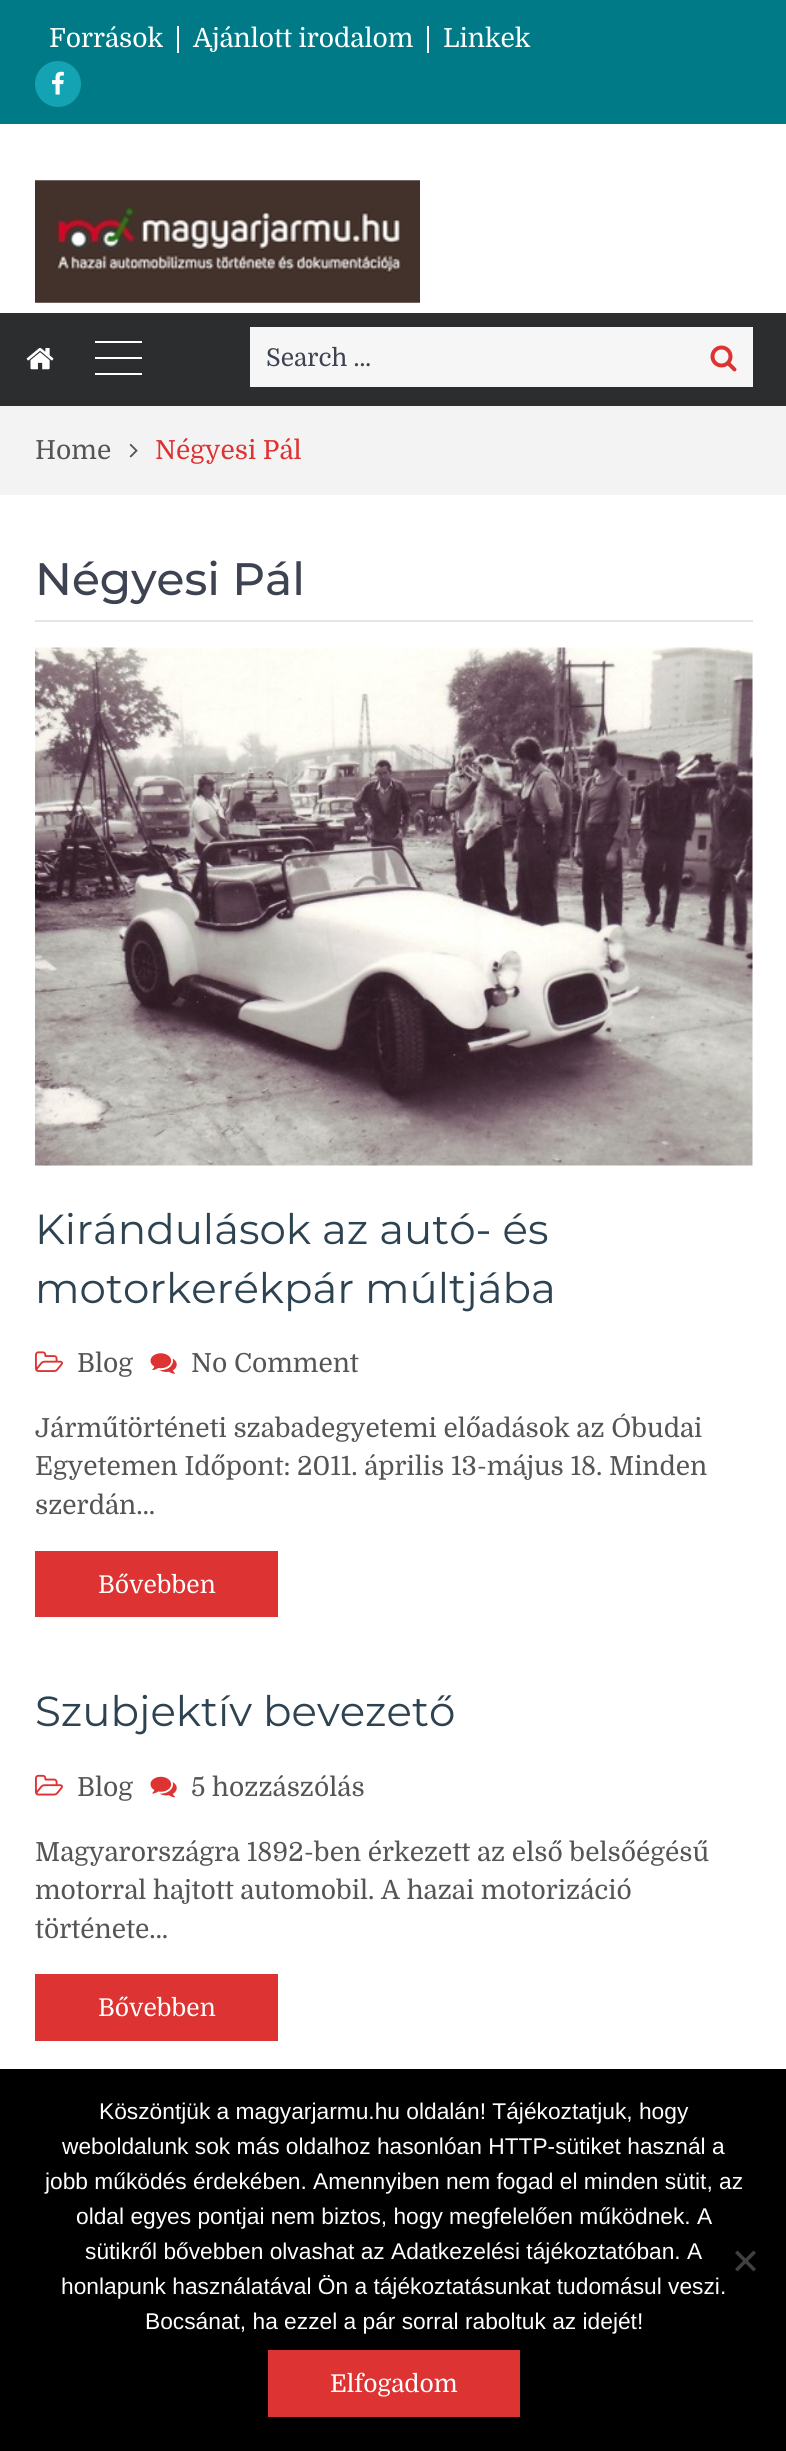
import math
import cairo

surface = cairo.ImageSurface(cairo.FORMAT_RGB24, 786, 2451)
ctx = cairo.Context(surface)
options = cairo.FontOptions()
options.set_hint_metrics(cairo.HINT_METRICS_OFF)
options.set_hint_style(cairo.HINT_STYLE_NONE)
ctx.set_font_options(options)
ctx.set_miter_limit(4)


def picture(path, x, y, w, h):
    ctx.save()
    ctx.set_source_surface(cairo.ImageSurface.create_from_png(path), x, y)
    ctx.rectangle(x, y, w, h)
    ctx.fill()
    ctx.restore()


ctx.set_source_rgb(1, 1, 1)
ctx.paint()
ctx.set_source_rgb(0, 0.478, 0.529)
ctx.rectangle(0, 0, 786, 124)
ctx.fill()
ctx.set_source_rgb(1, 1, 1)
ctx.rectangle(177, 26, 2, 27)
ctx.fill()
ctx.select_font_face("Domine")
ctx.set_font_size(26.25)
ctx.move_to(49, 47)
ctx.show_text("Források")
ctx.rectangle(427, 26, 2, 27)
ctx.fill()
ctx.move_to(193, 47)
ctx.show_text("Ajánlott irodalom")
ctx.move_to(443, 47)
ctx.show_text("Linkek")
ctx.set_source_rgb(0.078, 0.639, 0.698)
ctx.new_path()
ctx.arc(58, 84, 23, 0, 2 * math.pi)
ctx.fill()
picture("img1.png", 52, 71, 12, 24)
picture("img2.png", 35, 180, 385, 123)
ctx.set_source_rgb(0.169, 0.176, 0.18)
ctx.rectangle(0, 313, 786, 93)
ctx.fill()
picture("img3.png", 26, 348, 28, 22)
ctx.set_source_rgb(1, 1, 1)
ctx.rectangle(95, 341, 47, 2)
ctx.fill()
ctx.rectangle(95, 357, 47, 2)
ctx.fill()
ctx.rectangle(95, 373, 47, 2)
ctx.fill()
ctx.set_source_rgb(0.961, 0.961, 0.961)
ctx.rectangle(250, 327, 503, 60)
ctx.fill()
ctx.set_font_size(24.5)
ctx.set_source_rgb(0.239, 0.263, 0.318)
ctx.move_to(266, 366)
ctx.show_text("Search …")
picture("img4.png", 710, 345, 27, 27)
ctx.set_source_rgb(0.953, 0.953, 0.953)
ctx.rectangle(0, 406, 786, 89)
ctx.fill()
ctx.set_font_size(26.25)
ctx.set_source_rgb(0.333, 0.333, 0.333)
ctx.move_to(35, 459)
ctx.show_text("Home")
picture("img5.png", 129, 443, 9, 15)
ctx.set_source_rgb(0.867, 0.2, 0.2)
ctx.move_to(155, 459)
ctx.show_text("Négyesi Pál")
ctx.set_source_rgb(0.898, 0.898, 0.898)
ctx.rectangle(35, 620, 718, 2)
ctx.fill()
ctx.select_font_face("Montserrat Medium")
ctx.set_font_size(45.5)
ctx.set_source_rgb(0.239, 0.263, 0.318)
ctx.move_to(35, 595)
ctx.show_text("Négyesi Pál")
picture("img6.png", 35, 647, 718, 519)
ctx.select_font_face("Montserrat")
ctx.set_font_size(42)
ctx.set_source_rgb(0.176, 0.263, 0.318)
ctx.move_to(35, 1244)
ctx.show_text("Kirándulások az autó- és")
ctx.move_to(35, 1303)
ctx.show_text("motorkerékpár múltjába")
picture("img7.png", 35, 1351, 28, 21)
ctx.select_font_face("Domine")
ctx.set_font_size(26.25)
ctx.set_source_rgb(0.333, 0.333, 0.333)
ctx.move_to(77, 1372)
ctx.show_text("Blog")
picture("img8.png", 150, 1353, 27, 21)
ctx.move_to(191, 1372)
ctx.show_text("No Comment")
ctx.move_to(35, 1437)
ctx.show_text("Járműtörténeti szabadegyetemi előadások az Óbudai")
ctx.move_to(35, 1475)
ctx.show_text("Egyetemen Időpont: 2011. április 13-május 18. Minden")
ctx.move_to(35, 1514)
ctx.show_text("szerdán…")
ctx.set_source_rgb(0.867, 0.2, 0.2)
ctx.rectangle(35, 1551, 243, 66)
ctx.fill()
ctx.set_font_size(24.5)
ctx.set_source_rgb(1, 1, 1)
ctx.move_to(98, 1593)
ctx.show_text("Bővebben")
ctx.select_font_face("Montserrat")
ctx.set_font_size(42)
ctx.set_source_rgb(0.176, 0.263, 0.318)
ctx.move_to(35, 1726)
ctx.show_text("Szubjektív bevezető")
picture("img9.png", 35, 1774, 28, 22)
ctx.select_font_face("Domine")
ctx.set_font_size(26.25)
ctx.set_source_rgb(0.333, 0.333, 0.333)
ctx.move_to(77, 1796)
ctx.show_text("Blog")
picture("img10.png", 150, 1776, 27, 22)
ctx.move_to(191, 1796)
ctx.show_text("5 hozzászólás")
ctx.move_to(35, 1861)
ctx.show_text("Magyarországra 1892-ben érkezett az első belsőégésű")
ctx.move_to(35, 1899)
ctx.show_text("motorral hajtott automobil. A hazai motorizáció")
ctx.move_to(35, 1938)
ctx.show_text("története…")
ctx.set_source_rgb(0.867, 0.2, 0.2)
ctx.rectangle(35, 1974, 243, 67)
ctx.fill()
ctx.set_font_size(24.5)
ctx.set_source_rgb(1, 1, 1)
ctx.move_to(98, 2016)
ctx.show_text("Bővebben")
ctx.set_source_rgb(0, 0, 0)
ctx.rectangle(0, 2069, 786, 382)
ctx.fill()
ctx.select_font_face("Liberation Sans")
ctx.set_font_size(22.75)
ctx.set_source_rgb(1, 1, 1)
ctx.move_to(99, 2119)
ctx.show_text("Köszöntjük a magyarjarmu.hu oldalán! Tájékoztatjuk, hogy")
ctx.move_to(62, 2154)
ctx.show_text("weboldalunk sok más oldalhoz hasonlóan HTTP-sütiket használ a")
ctx.move_to(45, 2189)
ctx.show_text("jobb működés érdekében. Amennyiben nem fogad el minden sütit, az")
ctx.move_to(76, 2224)
ctx.show_text("oldal egyes pontjai nem biztos, hogy megfelelően működnek. A")
ctx.move_to(85, 2259)
ctx.show_text("sütikről bővebben olvashat az Adatkezelési tájékoztatóban. A")
ctx.move_to(61, 2294)
ctx.show_text("honlapunk használatával Ön a tájékoztatásunkat tudomásul veszi.")
ctx.move_to(145, 2329)
ctx.show_text("Bocsánat, ha ezzel a pár sorral raboltuk az idejét!")
ctx.set_source_rgb(0.251, 0.251, 0.251)
ctx.new_path()
ctx.move_to(753.5, 2250.5)
ctx.line_to(756, 2253)
ctx.line_to(737.5, 2271.5)
ctx.line_to(735, 2269)
ctx.close_path()
ctx.fill()
ctx.new_path()
ctx.move_to(735, 2253)
ctx.line_to(737.5, 2250.5)
ctx.line_to(756, 2269)
ctx.line_to(753.5, 2271.5)
ctx.close_path()
ctx.fill()
ctx.set_source_rgb(0.867, 0.2, 0.2)
ctx.rectangle(268, 2350, 252, 67)
ctx.fill()
ctx.select_font_face("Domine")
ctx.set_font_size(24.5)
ctx.set_source_rgb(1, 1, 1)
ctx.move_to(330, 2392)
ctx.show_text("Elfogadom")
surface.write_to_png("page.png")
